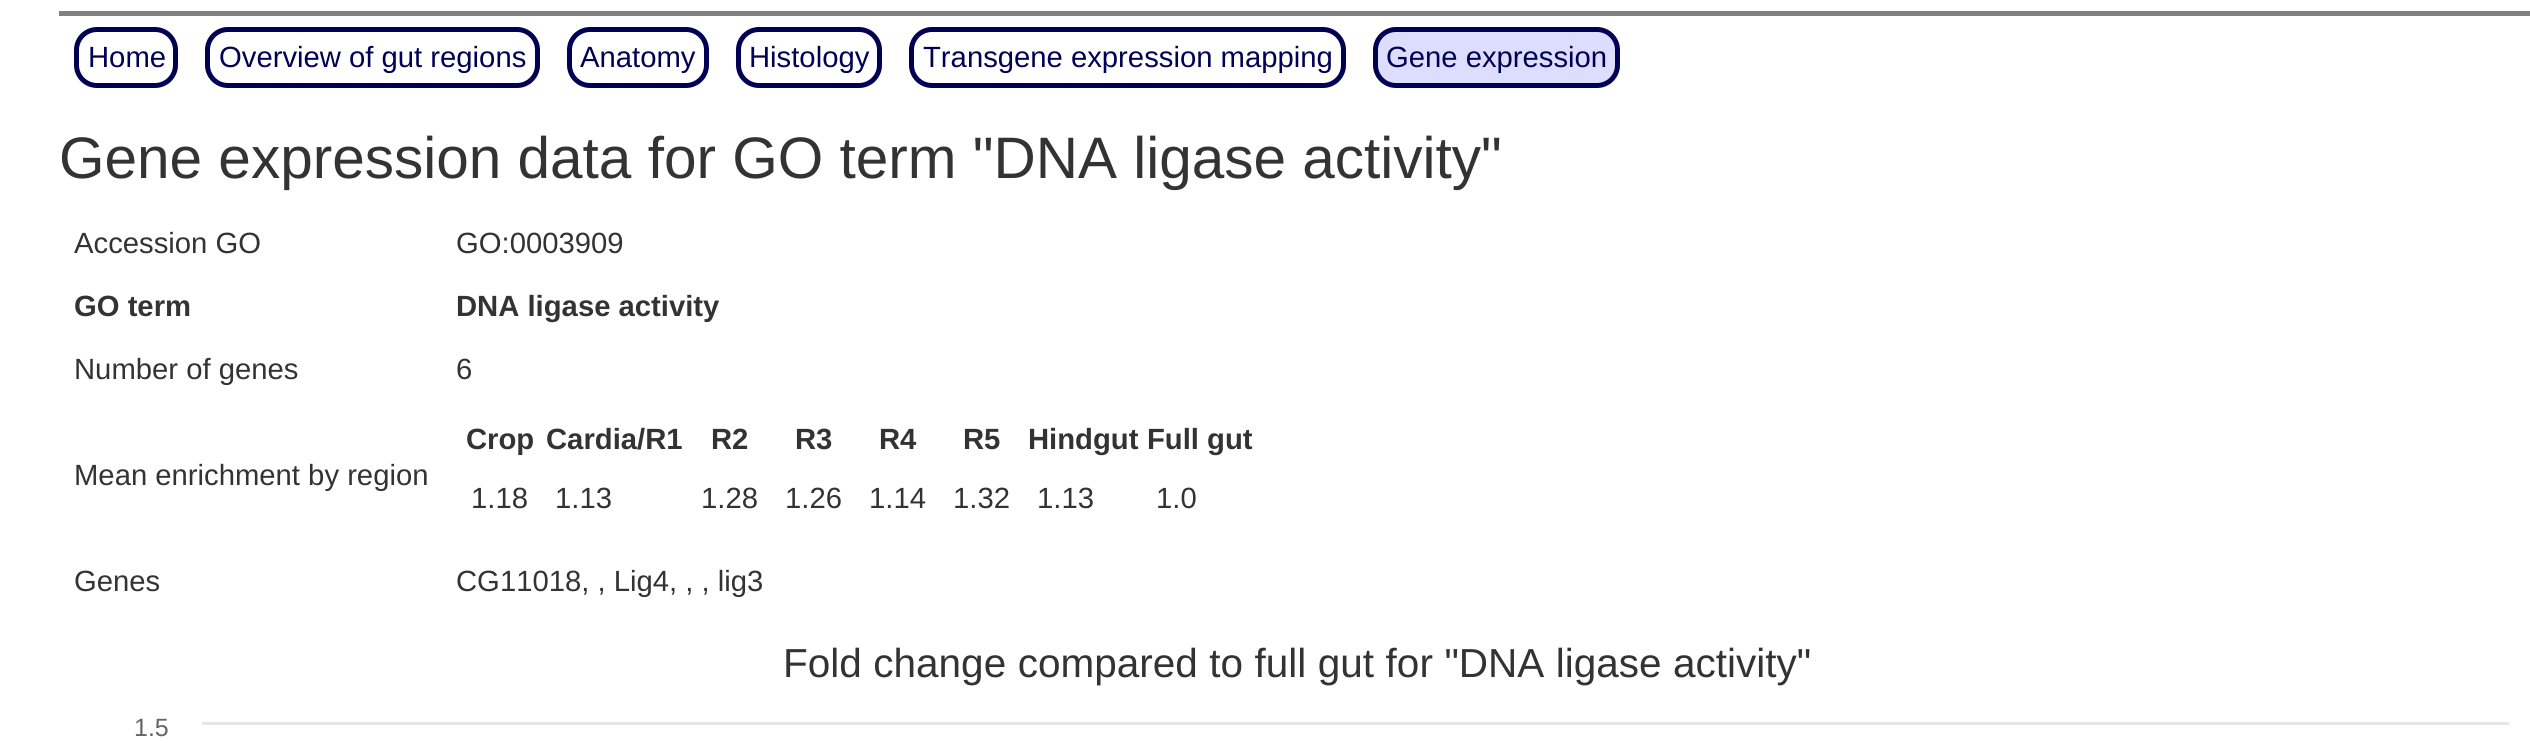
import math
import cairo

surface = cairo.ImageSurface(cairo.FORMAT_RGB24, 2530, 743)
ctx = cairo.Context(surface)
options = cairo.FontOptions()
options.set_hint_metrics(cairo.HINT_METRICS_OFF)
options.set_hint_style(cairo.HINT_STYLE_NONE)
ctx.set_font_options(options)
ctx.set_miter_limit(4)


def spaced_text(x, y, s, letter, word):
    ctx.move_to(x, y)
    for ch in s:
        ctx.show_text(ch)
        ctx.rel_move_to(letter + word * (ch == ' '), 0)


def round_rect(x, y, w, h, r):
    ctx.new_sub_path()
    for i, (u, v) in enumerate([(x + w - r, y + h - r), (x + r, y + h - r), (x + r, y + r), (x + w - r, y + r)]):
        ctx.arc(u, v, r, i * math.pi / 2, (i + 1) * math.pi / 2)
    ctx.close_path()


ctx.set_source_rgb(1, 1, 1)
ctx.paint()
ctx.set_source_rgb(0.502, 0.502, 0.502)
ctx.rectangle(59, 11, 2471, 5)
ctx.fill()
round_rect(76.5, 29.5, 99, 56, 20.5)
ctx.set_source_rgb(0, 0, 0.333)
ctx.set_line_width(5)
ctx.stroke()
ctx.select_font_face("Liberation Sans")
ctx.set_font_size(29.25)
ctx.move_to(88, 67)
ctx.show_text("Home")
round_rect(207.5, 29.5, 330, 56, 20.5)
ctx.stroke()
ctx.move_to(219, 67)
ctx.show_text("Overview of gut regions")
round_rect(569.5, 29.5, 137, 56, 20.5)
ctx.stroke()
ctx.move_to(580, 67)
ctx.show_text("Anatomy")
round_rect(738.5, 29.5, 141, 56, 20.5)
ctx.stroke()
ctx.move_to(749, 67)
ctx.show_text("Histology")
round_rect(911.5, 29.5, 432, 56, 20.5)
ctx.stroke()
ctx.move_to(923, 67)
ctx.show_text("Transgene expression mapping")
ctx.set_source_rgb(0.867, 0.867, 1)
round_rect(1375.5, 29.5, 242, 56, 20.5)
ctx.fill_preserve()
ctx.set_source_rgb(0, 0, 0.333)
ctx.stroke()
ctx.move_to(1386, 67)
ctx.show_text("Gene expression")
ctx.set_font_size(58.5)
ctx.set_source_rgb(0.2, 0.2, 0.2)
ctx.move_to(59, 178)
ctx.show_text("Gene expression data for GO term \"DNA ligase activity\"")
ctx.set_font_size(29.25)
ctx.move_to(74, 253)
ctx.show_text("Accession GO")
ctx.move_to(456, 253)
ctx.show_text("GO:0003909")
ctx.select_font_face("Liberation Sans", cairo.FONT_SLANT_NORMAL, cairo.FONT_WEIGHT_BOLD)
ctx.move_to(74, 316)
ctx.show_text("GO term")
ctx.move_to(456, 316)
ctx.show_text("DNA ligase activity")
ctx.select_font_face("Liberation Sans")
ctx.move_to(74, 379)
ctx.show_text("Number of genes")
ctx.move_to(456, 379)
ctx.show_text("6")
ctx.move_to(74, 485)
ctx.show_text("Mean enrichment by region")
ctx.select_font_face("Liberation Sans", cairo.FONT_SLANT_NORMAL, cairo.FONT_WEIGHT_BOLD)
ctx.move_to(466, 449)
ctx.show_text("Crop")
ctx.move_to(546, 449)
ctx.show_text("Cardia/R1")
ctx.move_to(711, 449)
ctx.show_text("R2")
ctx.move_to(795, 449)
ctx.show_text("R3")
ctx.move_to(879, 449)
ctx.show_text("R4")
ctx.move_to(963, 449)
ctx.show_text("R5")
ctx.move_to(1028, 449)
ctx.show_text("Hindgut")
ctx.move_to(1147, 449)
ctx.show_text("Full gut")
ctx.select_font_face("Liberation Sans")
ctx.move_to(471, 508)
ctx.show_text("1.18")
ctx.move_to(555, 508)
ctx.show_text("1.13")
ctx.move_to(701, 508)
ctx.show_text("1.28")
ctx.move_to(785, 508)
ctx.show_text("1.26")
ctx.move_to(869, 508)
ctx.show_text("1.14")
ctx.move_to(953, 508)
ctx.show_text("1.32")
ctx.move_to(1037, 508)
ctx.show_text("1.13")
ctx.move_to(1156, 508)
ctx.show_text("1.0")
ctx.move_to(74, 591)
ctx.show_text("Genes")
ctx.move_to(456, 591)
ctx.show_text("CG11018, , Lig4, , , lig3")
ctx.set_font_size(40.5)
spaced_text(783, 677, "Fold change compared to full gut for \"DNA ligase activity\"", 0, 0.25)
ctx.set_font_size(25)
ctx.set_source_rgb(0.4, 0.4, 0.4)
ctx.move_to(134, 736)
ctx.show_text("1.5")
ctx.set_source_rgb(0.902, 0.902, 0.902)
ctx.rectangle(202, 722, 2307, 3)
ctx.fill()
surface.write_to_png("page.png")
